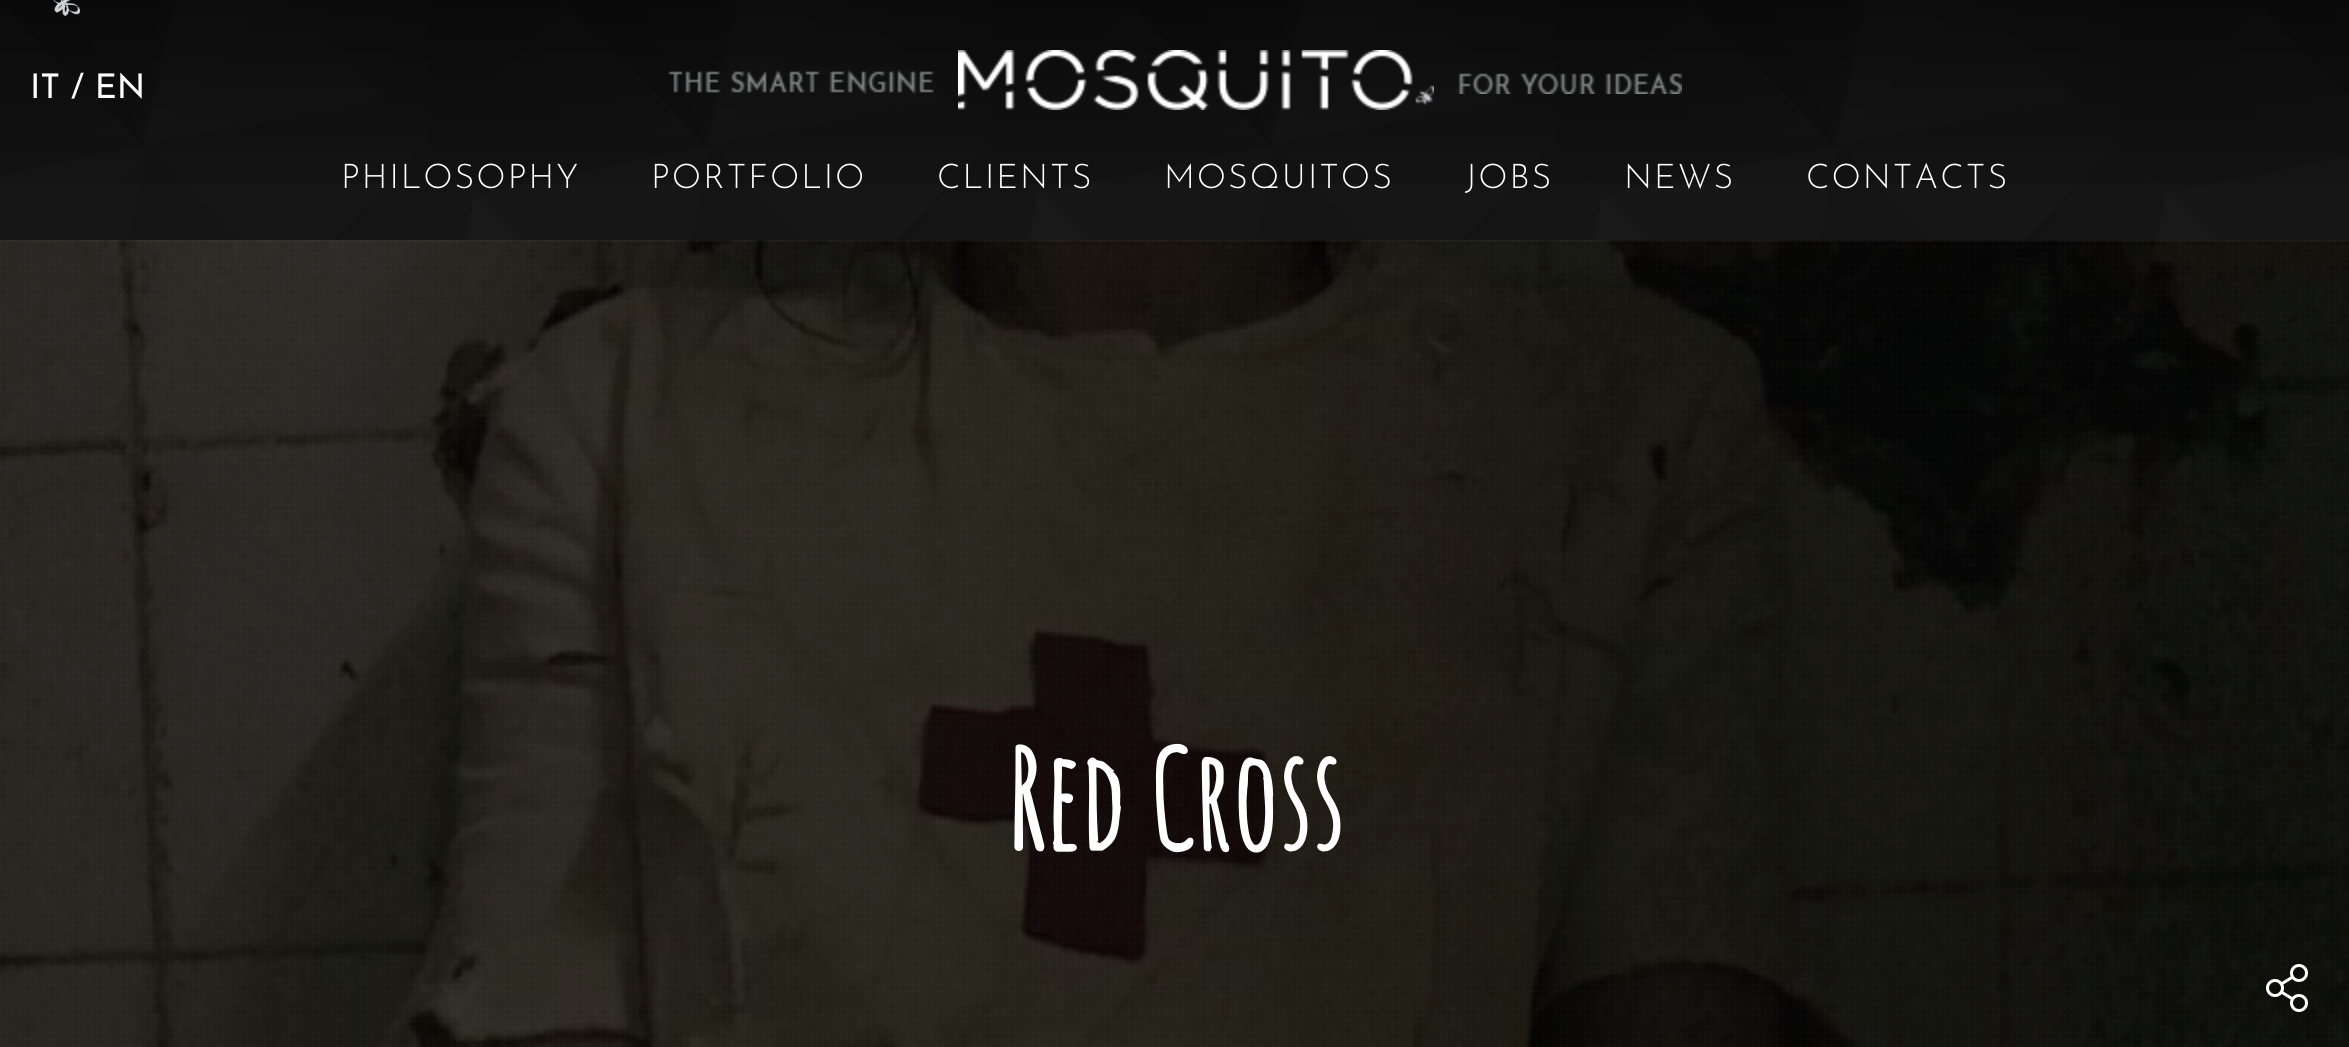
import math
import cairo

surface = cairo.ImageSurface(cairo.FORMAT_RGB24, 2349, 1047)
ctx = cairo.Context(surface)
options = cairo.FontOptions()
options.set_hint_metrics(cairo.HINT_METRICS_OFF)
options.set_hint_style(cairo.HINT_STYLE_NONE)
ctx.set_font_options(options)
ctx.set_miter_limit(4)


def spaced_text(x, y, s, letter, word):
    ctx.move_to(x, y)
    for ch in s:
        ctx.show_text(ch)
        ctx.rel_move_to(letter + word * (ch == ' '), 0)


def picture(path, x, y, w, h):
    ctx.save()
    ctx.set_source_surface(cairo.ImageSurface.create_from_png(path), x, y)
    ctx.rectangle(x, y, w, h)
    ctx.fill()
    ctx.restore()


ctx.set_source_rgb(1, 1, 1)
ctx.paint()
picture("img5.png", 0, 0, 2349, 240)
gradient = cairo.LinearGradient(1175, 0, 1175, 320)
gradient.add_color_stop_rgba(0, 0, 0, 0, 0.5)
gradient.add_color_stop_rgba(0.01, 0, 0, 0, 0.5)
gradient.add_color_stop_rgba(0.5, 0, 0, 0, 0.15)
gradient.add_color_stop_rgba(0.7, 0, 0, 0, 0.05)
gradient.add_color_stop_rgba(0.89, 0, 0, 0, 0)
gradient.add_color_stop_rgba(1, 0, 0, 0, 0)
ctx.set_source(gradient)
ctx.rectangle(0, 0, 2349, 184)
ctx.fill()
picture("img1.png", 53, 0, 27, 16)
ctx.select_font_face("Josefin Sans")
ctx.set_font_size(34)
ctx.set_source_rgb(1, 1, 1)
ctx.move_to(30, 98)
ctx.show_text("IT / EN")
picture("img2.png", 668, 70, 266, 24)
picture("img3.png", 958, 50, 476, 60)
picture("img4.png", 1458, 72, 224, 22)
ctx.select_font_face("Josefin Sans Light")
spaced_text(341, 188, "PHILOSOPHY", 2, 0)
spaced_text(651, 188, "PORTFOLIO", 2, 0)
spaced_text(937, 188, "CLIENTS", 2, 0)
spaced_text(1164, 188, "MOSQUITOS", 2, 0)
spaced_text(1465, 188, "JOBS", 2, 0)
spaced_text(1624, 188, "NEWS", 2, 0)
spaced_text(1806, 188, "CONTACTS", 2, 0)
picture("img6.png", 0, 240, 2349, 807)
picture("img7.png", 0, 240, 2349, 807)
ctx.select_font_face("Amatic SC", cairo.FONT_SLANT_NORMAL, cairo.FONT_WEIGHT_BOLD)
ctx.set_font_size(134)
ctx.move_to(1006, 850)
ctx.show_text("Red Cross")
picture("img8.png", 2266, 964, 42, 48)
surface.write_to_png("page.png")
